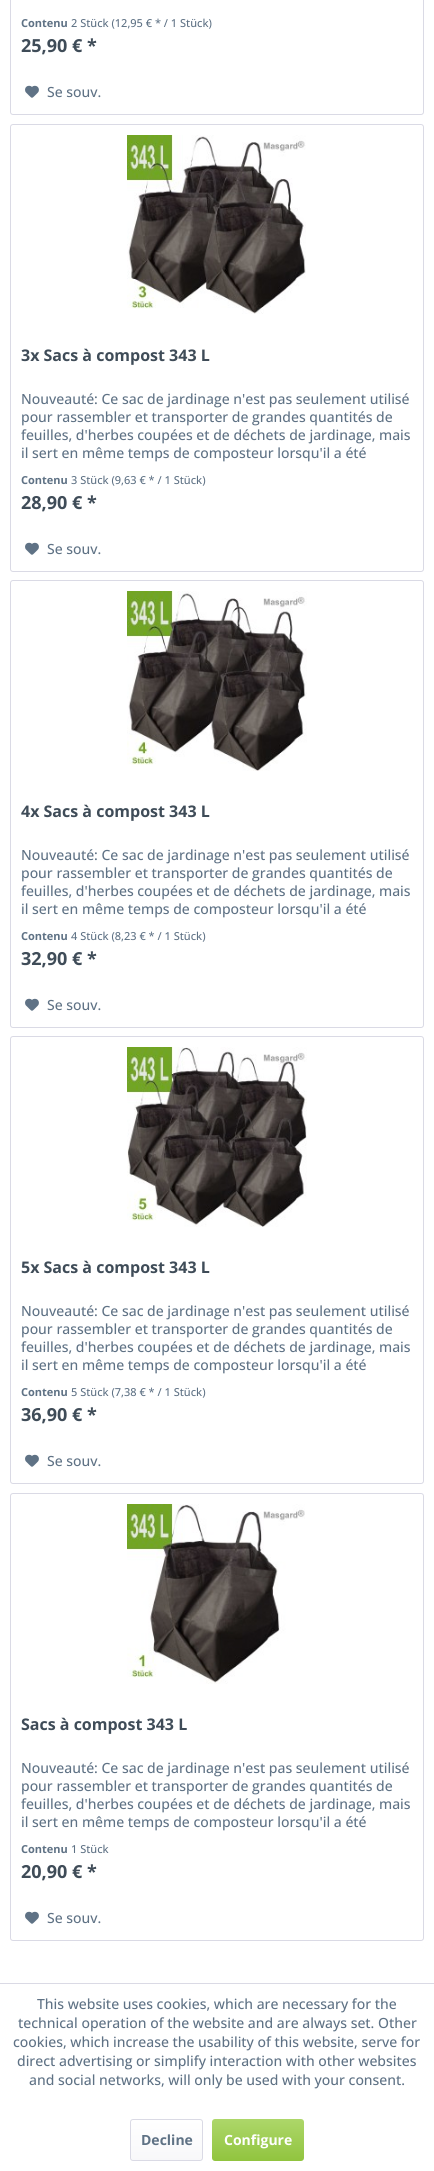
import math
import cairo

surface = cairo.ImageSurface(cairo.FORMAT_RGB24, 434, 2171)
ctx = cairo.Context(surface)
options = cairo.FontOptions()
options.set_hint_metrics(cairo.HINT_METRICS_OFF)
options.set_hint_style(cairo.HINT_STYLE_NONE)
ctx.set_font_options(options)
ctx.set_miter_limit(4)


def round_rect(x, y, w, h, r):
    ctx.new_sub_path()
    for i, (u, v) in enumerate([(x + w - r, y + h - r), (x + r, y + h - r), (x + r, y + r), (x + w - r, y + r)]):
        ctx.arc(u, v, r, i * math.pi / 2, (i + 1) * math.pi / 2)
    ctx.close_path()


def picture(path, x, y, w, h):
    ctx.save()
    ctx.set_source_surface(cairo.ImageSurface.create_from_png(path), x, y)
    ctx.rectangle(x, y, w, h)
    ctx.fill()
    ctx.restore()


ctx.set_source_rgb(1, 1, 1)
ctx.paint()
round_rect(10.5, -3.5, 413, 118, 2.5)
ctx.set_source_rgb(0.855, 0.855, 0.898)
ctx.set_line_width(1)
ctx.stroke()
ctx.select_font_face("Open Sans", cairo.FONT_SLANT_NORMAL, cairo.FONT_WEIGHT_BOLD)
ctx.set_font_size(11)
ctx.set_source_rgb(0.373, 0.447, 0.522)
ctx.move_to(21, 27)
ctx.show_text("Contenu")
ctx.select_font_face("Open Sans Medium")
ctx.move_to(71, 27)
ctx.show_text("2 Stück (12,95 € * / 1 Stück)")
ctx.select_font_face("Open Sans", cairo.FONT_SLANT_NORMAL, cairo.FONT_WEIGHT_BOLD)
ctx.set_font_size(18)
ctx.set_source_rgb(0.247, 0.298, 0.345)
ctx.move_to(21, 52)
ctx.show_text("25,90 € *")
picture("img1.png", 25, 85, 14, 13)
ctx.select_font_face("Open Sans Medium")
ctx.set_font_size(14)
ctx.set_source_rgb(0.373, 0.447, 0.522)
ctx.move_to(47, 97)
ctx.show_text("Se souv.")
round_rect(10.5, 124.5, 413, 447, 2.5)
ctx.set_source_rgb(0.855, 0.855, 0.898)
ctx.stroke()
picture("img2.png", 127, 135, 179, 179)
ctx.select_font_face("Open Sans", cairo.FONT_SLANT_NORMAL, cairo.FONT_WEIGHT_BOLD)
ctx.set_font_size(16)
ctx.set_source_rgb(0.247, 0.298, 0.345)
ctx.move_to(21, 361)
ctx.show_text("3x Sacs à compost 343 L")
ctx.select_font_face("Open Sans Medium")
ctx.set_font_size(14)
ctx.set_source_rgb(0.373, 0.447, 0.522)
ctx.move_to(21, 404)
ctx.show_text("Nouveauté: Ce sac de jardinage n'est pas seulement utilisé")
ctx.move_to(21, 422)
ctx.show_text("pour rassembler et transporter de grandes quantités de")
ctx.move_to(21, 440)
ctx.show_text("feuilles, d'herbes coupées et de déchets de jardinage, mais")
ctx.move_to(21, 458)
ctx.show_text("il sert en même temps de composteur lorsqu'il a été")
ctx.select_font_face("Open Sans", cairo.FONT_SLANT_NORMAL, cairo.FONT_WEIGHT_BOLD)
ctx.set_font_size(11)
ctx.move_to(21, 484)
ctx.show_text("Contenu")
ctx.select_font_face("Open Sans Medium")
ctx.move_to(71, 484)
ctx.show_text("3 Stück (9,63 € * / 1 Stück)")
ctx.select_font_face("Open Sans", cairo.FONT_SLANT_NORMAL, cairo.FONT_WEIGHT_BOLD)
ctx.set_font_size(18)
ctx.set_source_rgb(0.247, 0.298, 0.345)
ctx.move_to(21, 509)
ctx.show_text("28,90 € *")
picture("img1.png", 25, 542, 14, 13)
ctx.select_font_face("Open Sans Medium")
ctx.set_font_size(14)
ctx.set_source_rgb(0.373, 0.447, 0.522)
ctx.move_to(47, 554)
ctx.show_text("Se souv.")
round_rect(10.5, 580.5, 413, 447, 2.5)
ctx.set_source_rgb(0.855, 0.855, 0.898)
ctx.stroke()
picture("img3.png", 127, 591, 180, 180)
ctx.select_font_face("Open Sans", cairo.FONT_SLANT_NORMAL, cairo.FONT_WEIGHT_BOLD)
ctx.set_font_size(16)
ctx.set_source_rgb(0.247, 0.298, 0.345)
ctx.move_to(21, 817)
ctx.show_text("4x Sacs à compost 343 L")
ctx.select_font_face("Open Sans Medium")
ctx.set_font_size(14)
ctx.set_source_rgb(0.373, 0.447, 0.522)
ctx.move_to(21, 860)
ctx.show_text("Nouveauté: Ce sac de jardinage n'est pas seulement utilisé")
ctx.move_to(21, 878)
ctx.show_text("pour rassembler et transporter de grandes quantités de")
ctx.move_to(21, 896)
ctx.show_text("feuilles, d'herbes coupées et de déchets de jardinage, mais")
ctx.move_to(21, 914)
ctx.show_text("il sert en même temps de composteur lorsqu'il a été")
ctx.select_font_face("Open Sans", cairo.FONT_SLANT_NORMAL, cairo.FONT_WEIGHT_BOLD)
ctx.set_font_size(11)
ctx.move_to(21, 940)
ctx.show_text("Contenu")
ctx.select_font_face("Open Sans Medium")
ctx.move_to(71, 940)
ctx.show_text("4 Stück (8,23 € * / 1 Stück)")
ctx.select_font_face("Open Sans", cairo.FONT_SLANT_NORMAL, cairo.FONT_WEIGHT_BOLD)
ctx.set_font_size(18)
ctx.set_source_rgb(0.247, 0.298, 0.345)
ctx.move_to(21, 965)
ctx.show_text("32,90 € *")
picture("img1.png", 25, 998, 14, 13)
ctx.select_font_face("Open Sans Medium")
ctx.set_font_size(14)
ctx.set_source_rgb(0.373, 0.447, 0.522)
ctx.move_to(47, 1010)
ctx.show_text("Se souv.")
round_rect(10.5, 1036.5, 413, 447, 2.5)
ctx.set_source_rgb(0.855, 0.855, 0.898)
ctx.stroke()
picture("img4.png", 127, 1047, 180, 180)
ctx.select_font_face("Open Sans", cairo.FONT_SLANT_NORMAL, cairo.FONT_WEIGHT_BOLD)
ctx.set_font_size(16)
ctx.set_source_rgb(0.247, 0.298, 0.345)
ctx.move_to(21, 1273)
ctx.show_text("5x Sacs à compost 343 L")
ctx.select_font_face("Open Sans Medium")
ctx.set_font_size(14)
ctx.set_source_rgb(0.373, 0.447, 0.522)
ctx.move_to(21, 1316)
ctx.show_text("Nouveauté: Ce sac de jardinage n'est pas seulement utilisé")
ctx.move_to(21, 1334)
ctx.show_text("pour rassembler et transporter de grandes quantités de")
ctx.move_to(21, 1352)
ctx.show_text("feuilles, d'herbes coupées et de déchets de jardinage, mais")
ctx.move_to(21, 1370)
ctx.show_text("il sert en même temps de composteur lorsqu'il a été")
ctx.select_font_face("Open Sans", cairo.FONT_SLANT_NORMAL, cairo.FONT_WEIGHT_BOLD)
ctx.set_font_size(11)
ctx.move_to(21, 1396)
ctx.show_text("Contenu")
ctx.select_font_face("Open Sans Medium")
ctx.move_to(71, 1396)
ctx.show_text("5 Stück (7,38 € * / 1 Stück)")
ctx.select_font_face("Open Sans", cairo.FONT_SLANT_NORMAL, cairo.FONT_WEIGHT_BOLD)
ctx.set_font_size(18)
ctx.set_source_rgb(0.247, 0.298, 0.345)
ctx.move_to(21, 1421)
ctx.show_text("36,90 € *")
picture("img1.png", 25, 1454, 14, 13)
ctx.select_font_face("Open Sans Medium")
ctx.set_font_size(14)
ctx.set_source_rgb(0.373, 0.447, 0.522)
ctx.move_to(47, 1466)
ctx.show_text("Se souv.")
round_rect(10.5, 1493.5, 413, 447, 2.5)
ctx.set_source_rgb(0.855, 0.855, 0.898)
ctx.stroke()
picture("img5.png", 127, 1504, 178, 180)
ctx.select_font_face("Open Sans", cairo.FONT_SLANT_NORMAL, cairo.FONT_WEIGHT_BOLD)
ctx.set_font_size(16)
ctx.set_source_rgb(0.247, 0.298, 0.345)
ctx.move_to(21, 1730)
ctx.show_text("Sacs à compost 343 L")
ctx.select_font_face("Open Sans Medium")
ctx.set_font_size(14)
ctx.set_source_rgb(0.373, 0.447, 0.522)
ctx.move_to(21, 1773)
ctx.show_text("Nouveauté: Ce sac de jardinage n'est pas seulement utilisé")
ctx.move_to(21, 1791)
ctx.show_text("pour rassembler et transporter de grandes quantités de")
ctx.move_to(21, 1809)
ctx.show_text("feuilles, d'herbes coupées et de déchets de jardinage, mais")
ctx.move_to(21, 1827)
ctx.show_text("il sert en même temps de composteur lorsqu'il a été")
ctx.select_font_face("Open Sans", cairo.FONT_SLANT_NORMAL, cairo.FONT_WEIGHT_BOLD)
ctx.set_font_size(11)
ctx.move_to(21, 1853)
ctx.show_text("Contenu")
ctx.select_font_face("Open Sans Medium")
ctx.move_to(71, 1853)
ctx.show_text("1 Stück")
ctx.select_font_face("Open Sans", cairo.FONT_SLANT_NORMAL, cairo.FONT_WEIGHT_BOLD)
ctx.set_font_size(18)
ctx.set_source_rgb(0.247, 0.298, 0.345)
ctx.move_to(21, 1878)
ctx.show_text("20,90 € *")
picture("img1.png", 25, 1911, 14, 13)
ctx.select_font_face("Open Sans Medium")
ctx.set_font_size(14)
ctx.set_source_rgb(0.373, 0.447, 0.522)
ctx.move_to(47, 1923)
ctx.show_text("Se souv.")
ctx.set_source_rgb(0.855, 0.855, 0.898)
ctx.rectangle(0, 1983, 434, 1)
ctx.fill()
ctx.set_source_rgb(0.373, 0.447, 0.522)
ctx.move_to(37, 2009)
ctx.show_text("This website uses cookies, which are necessary for the")
ctx.move_to(18, 2028)
ctx.show_text("technical operation of the website and are always set. Other")
ctx.move_to(13, 2047)
ctx.show_text("cookies, which increase the usability of this website, serve for")
ctx.move_to(17, 2066)
ctx.show_text("direct advertising or simplify interaction with other websites")
ctx.move_to(29, 2085)
ctx.show_text("and social networks, will only be used with your consent.")
gradient = cairo.LinearGradient(167, 2120, 167, 2160)
gradient.add_color_stop_rgba(0, 1, 1, 1, 1)
gradient.add_color_stop_rgba(1, 0.973, 0.973, 0.98, 1)
ctx.set_source(gradient)
round_rect(131, 2120, 71, 40, 2)
ctx.fill()
round_rect(130.5, 2119.5, 72, 41, 2.5)
ctx.set_source_rgb(0.855, 0.855, 0.898)
ctx.stroke()
ctx.select_font_face("Open Sans", cairo.FONT_SLANT_NORMAL, cairo.FONT_WEIGHT_BOLD)
ctx.set_source_rgb(0.373, 0.447, 0.522)
ctx.move_to(141, 2145)
ctx.show_text("Decline")
gradient = cairo.LinearGradient(258, 2119, 258, 2161)
gradient.add_color_stop_rgba(0, 0.678, 0.843, 0.412, 1)
gradient.add_color_stop_rgba(1, 0.569, 0.769, 0.247, 1)
ctx.set_source(gradient)
round_rect(212, 2119, 92, 42, 3)
ctx.fill()
ctx.set_source_rgb(1, 1, 1)
ctx.move_to(224, 2145)
ctx.show_text("Configure")
surface.write_to_png("page.png")
